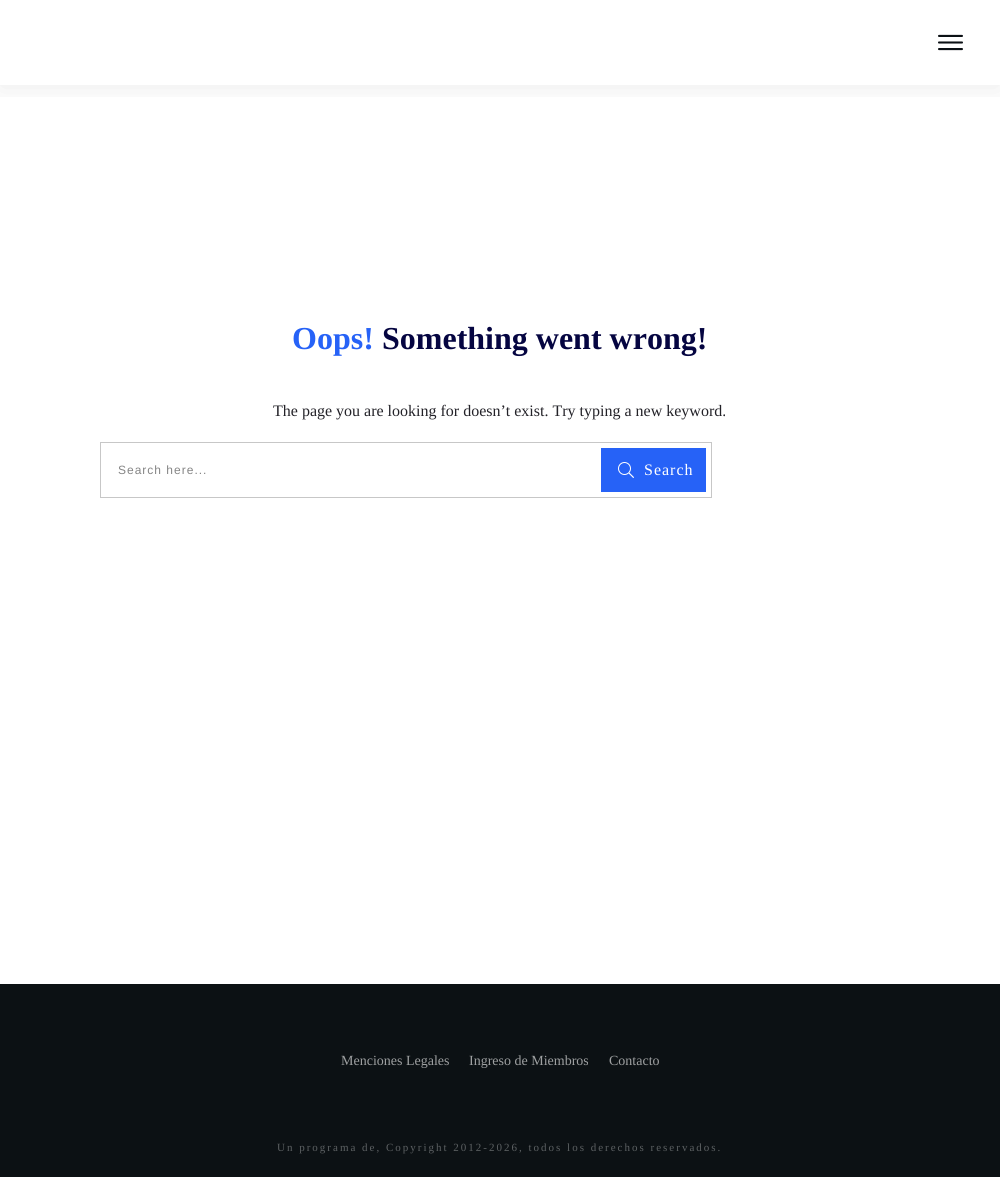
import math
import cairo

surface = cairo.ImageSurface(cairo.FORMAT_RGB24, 1000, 1177)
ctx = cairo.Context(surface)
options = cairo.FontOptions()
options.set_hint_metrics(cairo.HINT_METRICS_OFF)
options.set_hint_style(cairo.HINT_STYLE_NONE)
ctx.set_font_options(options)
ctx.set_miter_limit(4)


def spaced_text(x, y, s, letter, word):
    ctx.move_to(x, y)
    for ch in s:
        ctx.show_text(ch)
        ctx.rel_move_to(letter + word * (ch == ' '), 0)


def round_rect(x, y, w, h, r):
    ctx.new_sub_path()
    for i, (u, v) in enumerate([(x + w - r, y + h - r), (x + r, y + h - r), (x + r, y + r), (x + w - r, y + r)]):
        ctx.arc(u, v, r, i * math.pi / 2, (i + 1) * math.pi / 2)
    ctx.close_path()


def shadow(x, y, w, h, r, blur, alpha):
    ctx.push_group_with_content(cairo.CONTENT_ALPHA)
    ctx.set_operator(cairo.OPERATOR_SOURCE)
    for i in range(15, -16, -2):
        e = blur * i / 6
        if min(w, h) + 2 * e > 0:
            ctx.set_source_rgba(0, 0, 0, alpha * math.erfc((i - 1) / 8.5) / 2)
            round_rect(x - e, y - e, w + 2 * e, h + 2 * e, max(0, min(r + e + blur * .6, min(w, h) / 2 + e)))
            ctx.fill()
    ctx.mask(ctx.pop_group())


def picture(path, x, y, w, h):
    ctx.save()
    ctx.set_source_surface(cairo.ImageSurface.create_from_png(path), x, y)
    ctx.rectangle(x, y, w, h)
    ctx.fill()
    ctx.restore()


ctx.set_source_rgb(1, 1, 1)
ctx.paint()
ctx.save()
ctx.rectangle(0, 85, 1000, 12)
ctx.clip()
ctx.set_source_rgb(0, 0, 0)
shadow(0, 2, 1000, 85, 0, 15, 0.08)
ctx.restore()
picture("img1.png", 938, 34, 25, 17)
ctx.select_font_face("Liberation Serif", cairo.FONT_SLANT_NORMAL, cairo.FONT_WEIGHT_BOLD)
ctx.set_font_size(32)
ctx.set_source_rgb(0.149, 0.384, 0.965)
ctx.move_to(292, 349)
ctx.show_text("Oops!")
ctx.set_source_rgb(0.02, 0.02, 0.255)
ctx.move_to(382, 349)
ctx.show_text("Something went wrong!")
ctx.select_font_face("Liberation Serif")
ctx.set_font_size(16)
ctx.set_source_rgb(0.137, 0.133, 0.157)
ctx.move_to(273, 416)
ctx.show_text("The page you are looking for doesn’t exist. Try typing a new keyword.")
ctx.rectangle(100.5, 442.5, 611, 55)
ctx.set_source_rgb(0.78, 0.78, 0.78)
ctx.set_line_width(1)
ctx.stroke()
ctx.select_font_face("Liberation Sans")
ctx.set_font_size(12)
ctx.set_source_rgb(0.522, 0.522, 0.522)
spaced_text(118, 474, "Search here...", 1, 0)
ctx.set_source_rgb(0.149, 0.384, 0.965)
ctx.rectangle(601, 448, 105, 44)
ctx.fill()
picture("img2.png", 618, 462, 16, 16)
ctx.select_font_face("Liberation Serif")
ctx.set_font_size(16)
ctx.set_source_rgb(1, 1, 1)
spaced_text(644, 475, "Search", 1, 0)
ctx.set_source_rgb(0.047, 0.067, 0.082)
ctx.rectangle(0, 984, 1000, 193)
ctx.fill()
ctx.set_font_size(14)
ctx.set_source_rgb(0.62, 0.627, 0.631)
ctx.move_to(341, 1065)
ctx.show_text("Menciones Legales")
ctx.move_to(469, 1065)
ctx.show_text("Ingreso de Miembros")
ctx.move_to(609, 1065)
ctx.show_text("Contacto")
ctx.set_font_size(11)
ctx.set_source_rgb(0.361, 0.376, 0.384)
spaced_text(277, 1151, "Un programa de, Copyright 2012-2026, todos los derechos reservados.", 2, 0)
surface.write_to_png("page.png")
